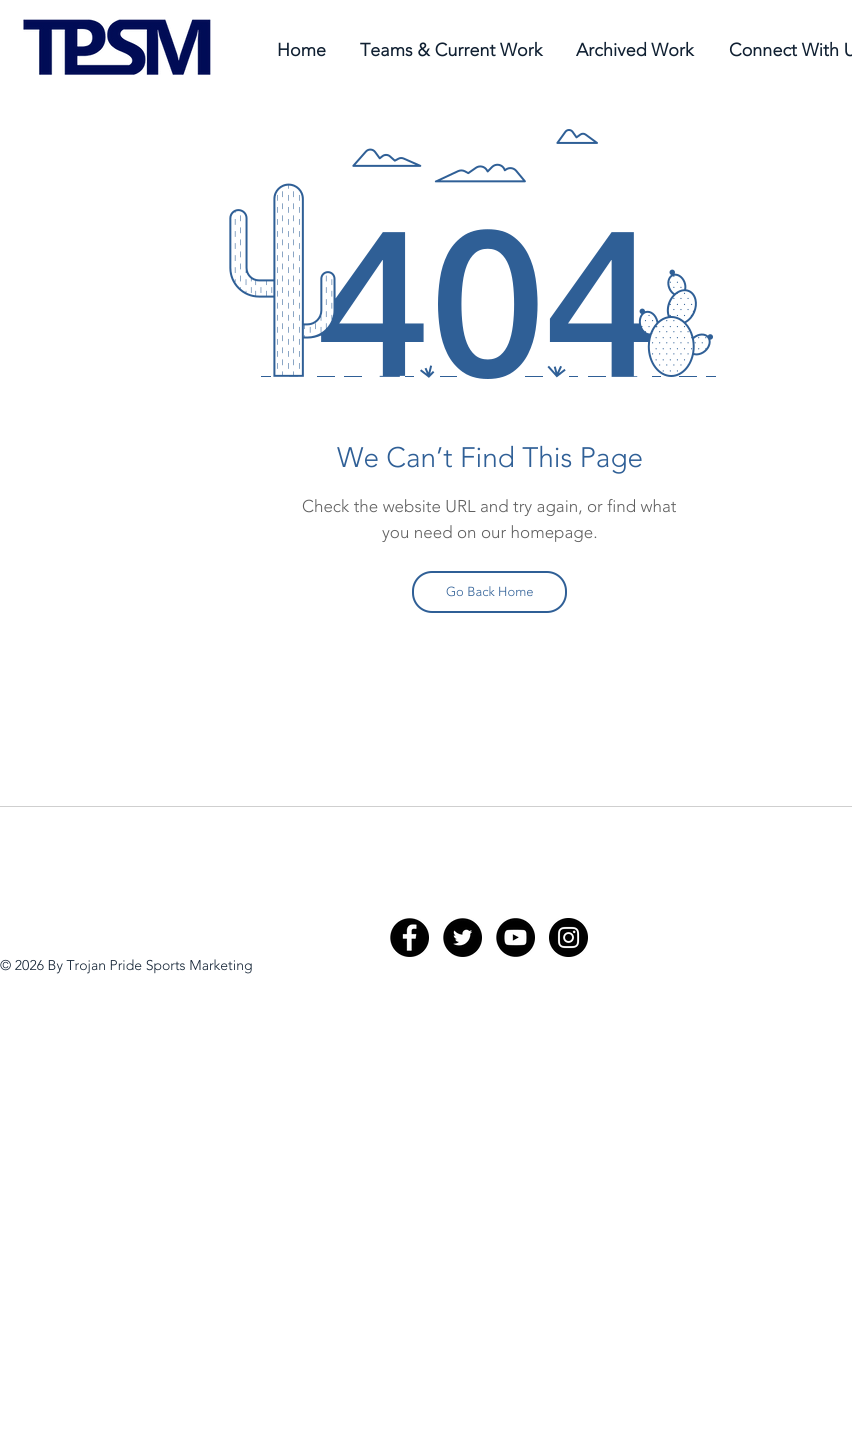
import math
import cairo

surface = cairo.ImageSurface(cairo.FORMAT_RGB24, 852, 1437)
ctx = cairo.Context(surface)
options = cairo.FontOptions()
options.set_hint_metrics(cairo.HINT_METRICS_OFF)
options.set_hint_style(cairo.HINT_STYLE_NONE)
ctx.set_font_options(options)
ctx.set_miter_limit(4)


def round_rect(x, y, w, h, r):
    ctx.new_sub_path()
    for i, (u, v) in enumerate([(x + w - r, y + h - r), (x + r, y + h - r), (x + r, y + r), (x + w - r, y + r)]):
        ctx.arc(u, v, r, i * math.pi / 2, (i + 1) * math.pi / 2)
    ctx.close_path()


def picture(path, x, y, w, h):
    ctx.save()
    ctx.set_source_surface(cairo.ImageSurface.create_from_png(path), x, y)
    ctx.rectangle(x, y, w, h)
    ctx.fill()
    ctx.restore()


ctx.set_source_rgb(1, 1, 1)
ctx.paint()
picture("img1.png", 23, 19, 188, 56)
ctx.select_font_face("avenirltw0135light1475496", cairo.FONT_SLANT_NORMAL, cairo.FONT_WEIGHT_BOLD)
ctx.set_font_size(18)
ctx.set_source_rgb(0.063, 0.125, 0.196)
ctx.move_to(277, 56)
ctx.show_text("Home")
ctx.move_to(360, 56)
ctx.show_text("Teams & Current Work")
ctx.move_to(576, 56)
ctx.show_text("Archived Work")
ctx.move_to(729, 56)
ctx.show_text("Connect With U")
picture("img2.png", 229, 129, 487, 250)
ctx.select_font_face("avenirltw0135light1475496 Light")
ctx.set_font_size(28)
ctx.set_source_rgb(0.184, 0.373, 0.588)
ctx.move_to(337, 467)
ctx.show_text("We Can’t Find This Page")
ctx.set_font_size(17)
ctx.set_source_rgb(0.376, 0.376, 0.376)
ctx.move_to(302, 512)
ctx.show_text("Check the website URL and try again, or find what")
ctx.move_to(382, 538)
ctx.show_text("you need on our homepage.")
round_rect(413, 572, 153, 40, 19)
ctx.set_source_rgb(0.184, 0.373, 0.588)
ctx.stroke()
ctx.set_font_size(13)
ctx.move_to(446, 596)
ctx.show_text("Go Back Home")
ctx.set_source_rgb(0.812, 0.812, 0.812)
ctx.rectangle(0, 806, 852, 1)
ctx.fill()
picture("img3.png", 390, 918, 39, 39)
picture("img4.png", 443, 918, 39, 39)
picture("img5.png", 496, 918, 39, 39)
picture("img6.png", 549, 918, 39, 39)
ctx.set_font_size(14)
ctx.set_source_rgb(0.063, 0.125, 0.196)
ctx.move_to(0, 970)
ctx.show_text("© 2026 By Trojan Pride Sports Marketing")
surface.write_to_png("page.png")
